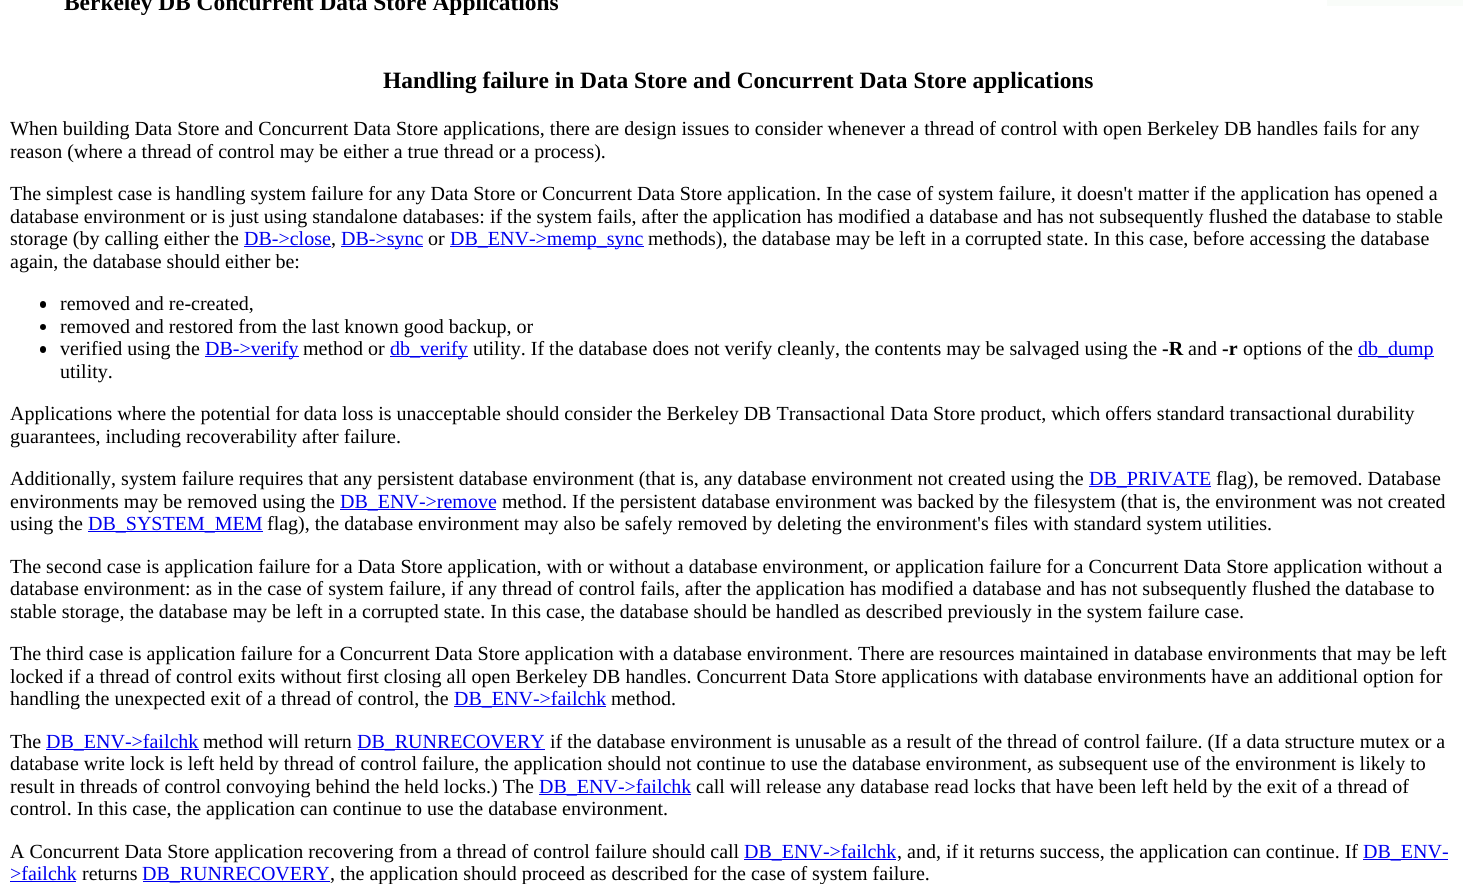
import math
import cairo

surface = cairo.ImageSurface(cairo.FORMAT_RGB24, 1476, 884)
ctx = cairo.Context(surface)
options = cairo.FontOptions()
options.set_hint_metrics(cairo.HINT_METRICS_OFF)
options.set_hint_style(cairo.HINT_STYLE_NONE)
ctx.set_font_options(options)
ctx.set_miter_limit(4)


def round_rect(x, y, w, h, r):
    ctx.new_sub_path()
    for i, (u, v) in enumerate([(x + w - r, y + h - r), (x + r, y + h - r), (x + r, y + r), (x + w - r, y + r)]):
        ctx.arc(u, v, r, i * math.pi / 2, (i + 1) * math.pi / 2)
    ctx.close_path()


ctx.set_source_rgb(1, 1, 1)
ctx.paint()
ctx.select_font_face("Liberation Serif", cairo.FONT_SLANT_NORMAL, cairo.FONT_WEIGHT_BOLD)
ctx.set_font_size(23.4)
ctx.set_source_rgb(0, 0, 0)
ctx.move_to(64, 10)
ctx.show_text("Berkeley DB Concurrent Data Store Applications")
ctx.set_source_rgb(0.973, 0.988, 0.973)
ctx.rectangle(1327, 0, 136, 6)
ctx.fill()
ctx.set_source_rgb(0, 0, 0)
ctx.move_to(383, 88)
ctx.show_text("Handling failure in Data Store and Concurrent Data Store applications")
ctx.select_font_face("Liberation Serif")
ctx.set_font_size(20)
ctx.move_to(10, 135)
ctx.show_text("When building Data Store and Concurrent Data Store applications, there are design issues to consider whenever a thread of control with open Berkeley DB handles fails for any")
ctx.move_to(10, 158)
ctx.show_text("reason (where a thread of control may be either a true thread or a process).")
ctx.move_to(10, 200)
ctx.show_text("The simplest case is handling system failure for any Data Store or Concurrent Data Store application. In the case of system failure, it doesn't matter if the application has opened a")
ctx.move_to(10, 223)
ctx.show_text("database environment or is just using standalone databases: if the system fails, after the application has modified a database and has not subsequently flushed the database to stable")
ctx.move_to(10, 245)
ctx.show_text("storage (by calling either the")
ctx.set_source_rgb(0, 0, 0.933)
ctx.move_to(244, 245)
ctx.show_text("DB->close")
ctx.rectangle(244, 246, 87, 1)
ctx.fill()
ctx.set_source_rgb(0, 0, 0)
ctx.move_to(331, 245)
ctx.show_text(",")
ctx.set_source_rgb(0, 0, 0.933)
ctx.rectangle(341, 246, 82, 1)
ctx.fill()
ctx.move_to(341, 245)
ctx.show_text("DB->sync")
ctx.set_source_rgb(0, 0, 0)
ctx.move_to(428, 245)
ctx.show_text("or")
ctx.set_source_rgb(0, 0, 0.933)
ctx.rectangle(450, 246, 194, 1)
ctx.fill()
ctx.move_to(450, 245)
ctx.show_text("DB_ENV->memp_sync")
ctx.set_source_rgb(0, 0, 0)
ctx.move_to(648, 245)
ctx.show_text("methods), the database may be left in a corrupted state. In this case, before accessing the database")
ctx.move_to(10, 268)
ctx.show_text("again, the database should either be:")
round_rect(40, 301, 6, 7, 3)
ctx.fill()
ctx.move_to(60, 310)
ctx.show_text("removed and re-created,")
ctx.new_path()
ctx.arc(43, 327, 3, 0, 2 * math.pi)
ctx.fill()
ctx.move_to(60, 333)
ctx.show_text("removed and restored from the last known good backup, or")
round_rect(40, 346, 6, 7, 3)
ctx.fill()
ctx.move_to(60, 355)
ctx.show_text("verified using the")
ctx.set_source_rgb(0, 0, 0.933)
ctx.rectangle(205, 356, 94, 1)
ctx.fill()
ctx.move_to(205, 355)
ctx.show_text("DB->verify")
ctx.set_source_rgb(0, 0, 0)
ctx.move_to(303, 355)
ctx.show_text("method or")
ctx.set_source_rgb(0, 0, 0.933)
ctx.rectangle(390, 356, 78, 1)
ctx.fill()
ctx.move_to(390, 355)
ctx.show_text("db_verify")
ctx.set_source_rgb(0, 0, 0)
ctx.move_to(473, 355)
ctx.show_text("utility. If the database does not verify cleanly, the contents may be salvaged using the")
ctx.select_font_face("Liberation Serif", cairo.FONT_SLANT_NORMAL, cairo.FONT_WEIGHT_BOLD)
ctx.move_to(1162, 355)
ctx.show_text("-R")
ctx.select_font_face("Liberation Serif")
ctx.move_to(1188, 355)
ctx.show_text("and")
ctx.select_font_face("Liberation Serif", cairo.FONT_SLANT_NORMAL, cairo.FONT_WEIGHT_BOLD)
ctx.move_to(1222, 355)
ctx.show_text("-r")
ctx.select_font_face("Liberation Serif")
ctx.move_to(1243, 355)
ctx.show_text("options of the")
ctx.set_source_rgb(0, 0, 0.933)
ctx.rectangle(1358, 356, 76, 1)
ctx.fill()
ctx.move_to(1358, 355)
ctx.show_text("db_dump")
ctx.set_source_rgb(0, 0, 0)
ctx.move_to(60, 378)
ctx.show_text("utility.")
ctx.move_to(10, 420)
ctx.show_text("Applications where the potential for data loss is unacceptable should consider the Berkeley DB Transactional Data Store product, which offers standard transactional durability")
ctx.move_to(10, 443)
ctx.show_text("guarantees, including recoverability after failure.")
ctx.move_to(10, 485)
ctx.show_text("Additionally, system failure requires that any persistent database environment (that is, any database environment not created using the")
ctx.set_source_rgb(0, 0, 0.933)
ctx.rectangle(1089, 486, 122, 1)
ctx.fill()
ctx.move_to(1089, 485)
ctx.show_text("DB_PRIVATE")
ctx.set_source_rgb(0, 0, 0)
ctx.move_to(1216, 485)
ctx.show_text("flag), be removed. Database")
ctx.move_to(10, 508)
ctx.show_text("environments may be removed using the")
ctx.set_source_rgb(0, 0, 0.933)
ctx.rectangle(340, 509, 156, 1)
ctx.fill()
ctx.move_to(340, 508)
ctx.show_text("DB_ENV->remove")
ctx.set_source_rgb(0, 0, 0)
ctx.move_to(502, 508)
ctx.show_text("method. If the persistent database environment was backed by the filesystem (that is, the environment was not created")
ctx.move_to(10, 530)
ctx.show_text("using the")
ctx.set_source_rgb(0, 0, 0.933)
ctx.rectangle(88, 531, 175, 1)
ctx.fill()
ctx.move_to(88, 530)
ctx.show_text("DB_SYSTEM_MEM")
ctx.set_source_rgb(0, 0, 0)
ctx.move_to(267, 530)
ctx.show_text("flag), the database environment may also be safely removed by deleting the environment's files with standard system utilities.")
ctx.move_to(10, 573)
ctx.show_text("The second case is application failure for a Data Store application, with or without a database environment, or application failure for a Concurrent Data Store application without a")
ctx.move_to(10, 595)
ctx.show_text("database environment: as in the case of system failure, if any thread of control fails, after the application has modified a database and has not subsequently flushed the database to")
ctx.move_to(10, 618)
ctx.show_text("stable storage, the database may be left in a corrupted state. In this case, the database should be handled as described previously in the system failure case.")
ctx.move_to(10, 660)
ctx.show_text("The third case is application failure for a Concurrent Data Store application with a database environment. There are resources maintained in database environments that may be left")
ctx.move_to(10, 683)
ctx.show_text("locked if a thread of control exits without first closing all open Berkeley DB handles. Concurrent Data Store applications with database environments have an additional option for")
ctx.move_to(10, 705)
ctx.show_text("handling the unexpected exit of a thread of control, the")
ctx.set_source_rgb(0, 0, 0.933)
ctx.rectangle(454, 706, 152, 1)
ctx.fill()
ctx.move_to(454, 705)
ctx.show_text("DB_ENV->failchk")
ctx.set_source_rgb(0, 0, 0)
ctx.move_to(611, 705)
ctx.show_text("method.")
ctx.move_to(10, 748)
ctx.show_text("The")
ctx.set_source_rgb(0, 0, 0.933)
ctx.rectangle(46, 749, 153, 1)
ctx.fill()
ctx.move_to(46, 748)
ctx.show_text("DB_ENV->failchk")
ctx.set_source_rgb(0, 0, 0)
ctx.move_to(203, 748)
ctx.show_text("method will return")
ctx.set_source_rgb(0, 0, 0.933)
ctx.rectangle(358, 749, 187, 1)
ctx.fill()
ctx.move_to(357, 748)
ctx.show_text("DB_RUNRECOVERY")
ctx.set_source_rgb(0, 0, 0)
ctx.move_to(550, 748)
ctx.show_text("if the database environment is unusable as a result of the thread of control failure. (If a data structure mutex or a")
ctx.move_to(10, 770)
ctx.show_text("database write lock is left held by thread of control failure, the application should not continue to use the database environment, as subsequent use of the environment is likely to")
ctx.move_to(10, 793)
ctx.show_text("result in threads of control convoying behind the held locks.) The")
ctx.set_source_rgb(0, 0, 0.933)
ctx.rectangle(539, 794, 152, 1)
ctx.fill()
ctx.move_to(539, 793)
ctx.show_text("DB_ENV->failchk")
ctx.set_source_rgb(0, 0, 0)
ctx.move_to(696, 793)
ctx.show_text("call will release any database read locks that have been left held by the exit of a thread of")
ctx.move_to(10, 815)
ctx.show_text("control. In this case, the application can continue to use the database environment.")
ctx.move_to(10, 858)
ctx.show_text("A Concurrent Data Store application recovering from a thread of control failure should call")
ctx.set_source_rgb(0, 0, 0.933)
ctx.rectangle(744, 859, 152, 1)
ctx.fill()
ctx.move_to(744, 858)
ctx.show_text("DB_ENV->failchk")
ctx.set_source_rgb(0, 0, 0)
ctx.move_to(897, 858)
ctx.show_text(", and, if it returns success, the application can continue. If")
ctx.set_source_rgb(0, 0, 0.933)
ctx.rectangle(1363, 859, 85, 1)
ctx.fill()
ctx.move_to(1363, 858)
ctx.show_text("DB_ENV-")
ctx.move_to(10, 880)
ctx.show_text(">failchk")
ctx.rectangle(10, 881, 66, 1)
ctx.fill()
ctx.set_source_rgb(0, 0, 0)
ctx.move_to(82, 880)
ctx.show_text("returns")
ctx.set_source_rgb(0, 0, 0.933)
ctx.rectangle(143, 881, 187, 1)
ctx.fill()
ctx.move_to(142, 880)
ctx.show_text("DB_RUNRECOVERY")
ctx.set_source_rgb(0, 0, 0)
ctx.move_to(330, 880)
ctx.show_text(", the application should proceed as described for the case of system failure.")
surface.write_to_png("page.png")
